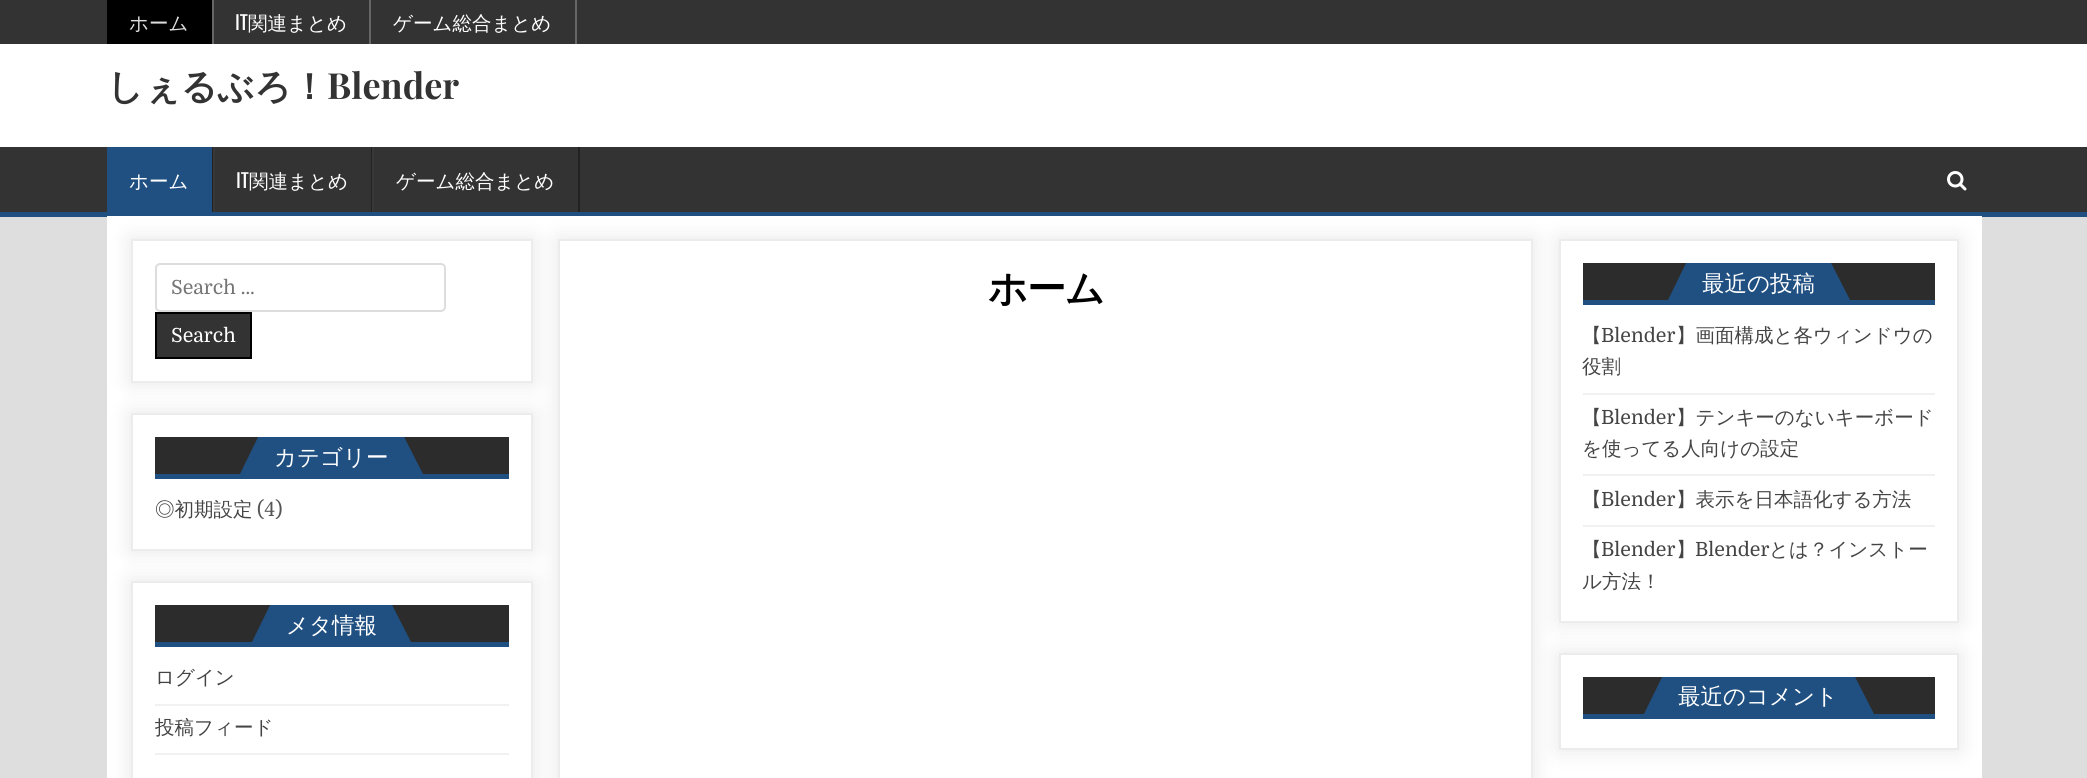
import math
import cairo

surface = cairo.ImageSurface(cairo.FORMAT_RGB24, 2087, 778)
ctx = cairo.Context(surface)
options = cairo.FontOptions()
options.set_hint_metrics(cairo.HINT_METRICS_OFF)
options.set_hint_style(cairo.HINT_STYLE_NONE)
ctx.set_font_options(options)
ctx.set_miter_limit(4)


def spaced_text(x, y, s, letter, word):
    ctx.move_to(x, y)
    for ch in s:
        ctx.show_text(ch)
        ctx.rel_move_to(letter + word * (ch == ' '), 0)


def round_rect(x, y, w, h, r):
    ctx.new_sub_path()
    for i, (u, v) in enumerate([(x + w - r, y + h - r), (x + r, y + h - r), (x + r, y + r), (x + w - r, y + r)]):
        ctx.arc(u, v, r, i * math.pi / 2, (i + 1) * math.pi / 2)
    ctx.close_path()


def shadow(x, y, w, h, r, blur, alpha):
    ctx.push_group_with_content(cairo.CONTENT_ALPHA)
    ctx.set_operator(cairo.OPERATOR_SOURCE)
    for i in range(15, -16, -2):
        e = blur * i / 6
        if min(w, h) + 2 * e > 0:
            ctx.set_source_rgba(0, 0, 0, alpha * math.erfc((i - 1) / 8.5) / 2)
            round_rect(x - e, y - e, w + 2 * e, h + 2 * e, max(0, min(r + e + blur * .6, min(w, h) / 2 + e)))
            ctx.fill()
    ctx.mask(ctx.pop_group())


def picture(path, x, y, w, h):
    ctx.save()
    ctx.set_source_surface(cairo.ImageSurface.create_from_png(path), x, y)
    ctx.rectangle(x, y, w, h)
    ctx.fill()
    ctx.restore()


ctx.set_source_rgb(0.871, 0.871, 0.871)
ctx.paint()
ctx.set_source_rgb(0.2, 0.2, 0.2)
ctx.rectangle(0, 0, 2087, 44)
ctx.fill()
ctx.set_source_rgb(0, 0, 0)
ctx.rectangle(107, 0, 105, 44)
ctx.fill()
ctx.set_source_rgb(0.4, 0.4, 0.4)
ctx.rectangle(212, 0, 2, 44)
ctx.fill()
ctx.select_font_face("WenQuanYi Zen Hei Medium")
ctx.set_font_size(19.5)
ctx.set_source_rgb(0.867, 0.867, 0.867)
ctx.move_to(129, 30)
ctx.show_text("ホーム")
ctx.set_source_rgb(0.4, 0.4, 0.4)
ctx.rectangle(369, 0, 2, 44)
ctx.fill()
ctx.select_font_face("Oswald")
ctx.set_source_rgb(1, 1, 1)
ctx.move_to(235, 30)
ctx.show_text("IT")
ctx.select_font_face("WenQuanYi Zen Hei Medium")
ctx.move_to(248, 30)
ctx.show_text("関連まとめ")
ctx.set_source_rgb(0.4, 0.4, 0.4)
ctx.rectangle(575, 0, 2, 44)
ctx.fill()
ctx.set_source_rgb(1, 1, 1)
ctx.move_to(393, 30)
ctx.show_text("ゲーム総合まとめ")
ctx.rectangle(0, 44, 2087, 103)
ctx.fill()
ctx.select_font_face("WenQuanYi Zen Hei", cairo.FONT_SLANT_NORMAL, cairo.FONT_WEIGHT_BOLD)
ctx.set_font_size(36)
ctx.set_source_rgb(0.2, 0.2, 0.2)
ctx.move_to(107, 99)
ctx.show_text("しぇるぶろ！")
ctx.select_font_face("Playfair Display", cairo.FONT_SLANT_NORMAL, cairo.FONT_WEIGHT_BOLD)
ctx.move_to(327, 99)
ctx.show_text("Blender")
ctx.rectangle(0, 147, 2087, 65)
ctx.fill()
ctx.set_source_rgb(0.125, 0.314, 0.506)
ctx.rectangle(0, 212, 2087, 5)
ctx.fill()
ctx.rectangle(107, 147, 105, 65)
ctx.fill()
ctx.set_source_rgb(0.133, 0.133, 0.133)
ctx.rectangle(212, 147, 1, 65)
ctx.fill()
ctx.select_font_face("WenQuanYi Zen Hei Medium")
ctx.set_font_size(19.5)
ctx.set_source_rgb(1, 1, 1)
ctx.move_to(129, 188)
ctx.show_text("ホーム")
ctx.set_source_rgb(0.133, 0.133, 0.133)
ctx.rectangle(371, 147, 1, 65)
ctx.fill()
ctx.set_source_rgb(0.22, 0.22, 0.22)
ctx.rectangle(213, 147, 2, 65)
ctx.fill()
ctx.select_font_face("Oswald")
ctx.set_source_rgb(1, 1, 1)
ctx.move_to(236, 188)
ctx.show_text("IT")
ctx.select_font_face("WenQuanYi Zen Hei Medium")
ctx.move_to(249, 188)
ctx.show_text("関連まとめ")
ctx.set_source_rgb(0.133, 0.133, 0.133)
ctx.rectangle(578, 147, 2, 65)
ctx.fill()
ctx.set_source_rgb(0.22, 0.22, 0.22)
ctx.rectangle(372, 147, 2, 65)
ctx.fill()
ctx.set_source_rgb(1, 1, 1)
ctx.move_to(396, 188)
ctx.show_text("ゲーム総合まとめ")
picture("img1.png", 1947, 171, 20, 20)
ctx.rectangle(107, 216, 1875, 562)
ctx.fill()
ctx.set_source_rgb(0, 0, 0)
shadow(131, 239, 402, 144, 0, 11, 0.1)
ctx.set_source_rgb(1, 1, 1)
ctx.rectangle(132, 240, 400, 142)
ctx.fill_preserve()
ctx.set_source_rgb(0.925, 0.925, 0.925)
ctx.stroke()
round_rect(156, 264, 289, 47, 4)
ctx.set_source_rgb(0.867, 0.867, 0.867)
ctx.stroke()
ctx.select_font_face("Domine")
ctx.set_source_rgb(0.459, 0.459, 0.459)
ctx.move_to(171, 294)
ctx.show_text("Search …")
ctx.set_source_rgb(0.2, 0.2, 0.2)
ctx.rectangle(156, 313, 95, 45)
ctx.fill_preserve()
ctx.set_source_rgb(0, 0, 0)
ctx.stroke()
ctx.set_source_rgb(1, 1, 1)
ctx.move_to(171, 342)
ctx.show_text("Search")
ctx.set_source_rgb(0, 0, 0)
shadow(131, 413, 402, 138, 0, 11, 0.1)
ctx.set_source_rgb(1, 1, 1)
ctx.rectangle(132, 414, 400, 136)
ctx.fill_preserve()
ctx.set_source_rgb(0.925, 0.925, 0.925)
ctx.stroke()
ctx.set_source_rgb(0.173, 0.173, 0.173)
ctx.rectangle(155, 437, 354, 37)
ctx.fill()
ctx.set_source_rgb(0.125, 0.314, 0.506)
ctx.rectangle(155, 474, 354, 5)
ctx.fill()
ctx.rectangle(262, 437, 138, 37)
ctx.fill()
ctx.save()
ctx.rectangle(155, 437, 354, 37)
ctx.clip()
ctx.new_path()
ctx.move_to(262, 429)
ctx.line_to(262, 474)
ctx.line_to(240, 474)
ctx.close_path()
ctx.fill()
ctx.restore()
ctx.select_font_face("WenQuanYi Zen Hei Medium")
ctx.set_font_size(22.5)
ctx.set_source_rgb(1, 1, 1)
ctx.move_to(274, 465)
ctx.show_text("カテゴリー")
ctx.save()
ctx.rectangle(155, 437, 354, 37)
ctx.clip()
ctx.set_source_rgb(0.125, 0.314, 0.506)
ctx.new_path()
ctx.move_to(400, 474)
ctx.line_to(400, 429)
ctx.line_to(423, 474)
ctx.close_path()
ctx.fill()
ctx.restore()
ctx.set_font_size(19.5)
ctx.set_source_rgb(0.267, 0.267, 0.267)
ctx.move_to(155, 516)
ctx.show_text("◎初期設定")
ctx.select_font_face("Domine")
ctx.set_source_rgb(0.333, 0.333, 0.333)
ctx.move_to(257, 516)
ctx.show_text("(4)")
ctx.set_source_rgb(0, 0, 0)
shadow(131, 581, 402, 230, 0, 11, 0.1)
ctx.set_source_rgb(1, 1, 1)
ctx.rectangle(132, 582, 400, 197)
ctx.fill_preserve()
ctx.set_source_rgb(0.925, 0.925, 0.925)
ctx.stroke()
ctx.set_source_rgb(0.173, 0.173, 0.173)
ctx.rectangle(155, 605, 354, 37)
ctx.fill()
ctx.set_source_rgb(0.125, 0.314, 0.506)
ctx.rectangle(155, 642, 354, 5)
ctx.fill()
ctx.rectangle(274, 605, 114, 37)
ctx.fill()
ctx.save()
ctx.rectangle(155, 605, 354, 37)
ctx.clip()
ctx.new_path()
ctx.move_to(274, 597)
ctx.line_to(274, 642)
ctx.line_to(252, 642)
ctx.close_path()
ctx.fill()
ctx.restore()
ctx.select_font_face("WenQuanYi Zen Hei Medium")
ctx.set_font_size(22.5)
ctx.set_source_rgb(1, 1, 1)
ctx.move_to(286, 633)
ctx.show_text("メタ情報")
ctx.save()
ctx.rectangle(155, 605, 354, 37)
ctx.clip()
ctx.set_source_rgb(0.125, 0.314, 0.506)
ctx.new_path()
ctx.move_to(388, 642)
ctx.line_to(388, 597)
ctx.line_to(411, 642)
ctx.close_path()
ctx.fill()
ctx.restore()
ctx.set_source_rgb(0.945, 0.945, 0.945)
ctx.rectangle(155, 704, 354, 2)
ctx.fill()
ctx.set_font_size(19.5)
ctx.set_source_rgb(0.267, 0.267, 0.267)
ctx.move_to(155, 684)
ctx.show_text("ログイン")
ctx.set_source_rgb(0.945, 0.945, 0.945)
ctx.rectangle(155, 753, 354, 2)
ctx.fill()
ctx.set_source_rgb(0.267, 0.267, 0.267)
ctx.move_to(155, 734)
ctx.show_text("投稿フィード")
ctx.save()
ctx.set_fill_rule(cairo.FILL_RULE_EVEN_ODD)
ctx.new_path()
ctx.move_to(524, 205)
ctx.line_to(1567, 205)
ctx.line_to(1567, 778)
ctx.line_to(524, 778)
ctx.close_path()
ctx.move_to(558, 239)
ctx.line_to(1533, 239)
ctx.line_to(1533, 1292)
ctx.line_to(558, 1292)
ctx.close_path()
ctx.clip()
ctx.set_source_rgb(0, 0, 0)
shadow(558, 239, 975, 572, 0, 11, 0.1)
ctx.restore()
ctx.rectangle(559, 240, 973, 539)
ctx.set_source_rgb(0.925, 0.925, 0.925)
ctx.stroke()
ctx.select_font_face("WenQuanYi Zen Hei", cairo.FONT_SLANT_NORMAL, cairo.FONT_WEIGHT_BOLD)
ctx.set_font_size(39)
ctx.set_source_rgb(0, 0, 0)
spaced_text(988, 302, "ホーム", -1, 0)
ctx.set_source_rgb(0, 0, 0)
shadow(1559, 239, 400, 384, 0, 11, 0.1)
ctx.set_source_rgb(1, 1, 1)
ctx.rectangle(1560, 240, 398, 382)
ctx.fill_preserve()
ctx.set_source_rgb(0.925, 0.925, 0.925)
ctx.stroke()
ctx.set_source_rgb(0.173, 0.173, 0.173)
ctx.rectangle(1583, 263, 352, 37)
ctx.fill()
ctx.set_source_rgb(0.125, 0.314, 0.506)
ctx.rectangle(1583, 300, 352, 5)
ctx.fill()
ctx.rectangle(1690, 263, 137, 37)
ctx.fill()
ctx.save()
ctx.rectangle(1583, 263, 352, 37)
ctx.clip()
ctx.new_path()
ctx.move_to(1690, 255)
ctx.line_to(1690, 300)
ctx.line_to(1668, 300)
ctx.close_path()
ctx.fill()
ctx.restore()
ctx.select_font_face("WenQuanYi Zen Hei Medium")
ctx.set_font_size(22.5)
ctx.set_source_rgb(1, 1, 1)
ctx.move_to(1702, 291)
ctx.show_text("最近の投稿")
ctx.save()
ctx.rectangle(1583, 263, 352, 37)
ctx.clip()
ctx.set_source_rgb(0.125, 0.314, 0.506)
ctx.new_path()
ctx.move_to(1827, 300)
ctx.line_to(1827, 255)
ctx.line_to(1850, 300)
ctx.close_path()
ctx.fill()
ctx.restore()
ctx.set_source_rgb(0.945, 0.945, 0.945)
ctx.rectangle(1583, 393, 352, 2)
ctx.fill()
ctx.set_font_size(19.5)
ctx.set_source_rgb(0.267, 0.267, 0.267)
ctx.move_to(1582, 342)
ctx.show_text("【")
ctx.select_font_face("Domine")
ctx.move_to(1601, 342)
ctx.show_text("Blender")
ctx.select_font_face("WenQuanYi Zen Hei Medium")
ctx.move_to(1676, 342)
ctx.show_text("】画面構成と各ウィンドウの")
ctx.move_to(1582, 373)
ctx.show_text("役割")
ctx.set_source_rgb(0.945, 0.945, 0.945)
ctx.rectangle(1583, 474, 352, 2)
ctx.fill()
ctx.set_source_rgb(0.267, 0.267, 0.267)
ctx.move_to(1582, 424)
ctx.show_text("【")
ctx.select_font_face("Domine")
ctx.move_to(1601, 424)
ctx.show_text("Blender")
ctx.select_font_face("WenQuanYi Zen Hei Medium")
ctx.move_to(1676, 424)
ctx.show_text("】テンキーのないキーボード")
ctx.move_to(1582, 455)
ctx.show_text("を使ってる人向けの設定")
ctx.set_source_rgb(0.945, 0.945, 0.945)
ctx.rectangle(1583, 525, 352, 2)
ctx.fill()
ctx.set_source_rgb(0.267, 0.267, 0.267)
ctx.move_to(1582, 506)
ctx.show_text("【")
ctx.select_font_face("Domine")
ctx.move_to(1601, 506)
ctx.show_text("Blender")
ctx.select_font_face("WenQuanYi Zen Hei Medium")
ctx.move_to(1676, 506)
ctx.show_text("】表示を日本語化する方法")
ctx.move_to(1582, 556)
ctx.show_text("【")
ctx.select_font_face("Domine")
ctx.move_to(1601, 556)
ctx.show_text("Blender")
ctx.select_font_face("WenQuanYi Zen Hei Medium")
ctx.move_to(1676, 556)
ctx.show_text("】")
ctx.select_font_face("Domine")
ctx.move_to(1695, 556)
ctx.show_text("Blender")
ctx.select_font_face("WenQuanYi Zen Hei Medium")
ctx.move_to(1769, 556)
ctx.show_text("とは？インストー")
ctx.move_to(1582, 588)
ctx.show_text("ル方法！")
ctx.save()
ctx.set_fill_rule(cairo.FILL_RULE_EVEN_ODD)
ctx.new_path()
ctx.move_to(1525, 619)
ctx.line_to(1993, 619)
ctx.line_to(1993, 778)
ctx.line_to(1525, 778)
ctx.close_path()
ctx.move_to(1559, 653)
ctx.line_to(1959, 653)
ctx.line_to(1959, 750)
ctx.line_to(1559, 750)
ctx.close_path()
ctx.clip()
ctx.set_source_rgb(0, 0, 0)
shadow(1559, 653, 400, 97, 0, 11, 0.1)
ctx.restore()
ctx.rectangle(1560, 654, 398, 95)
ctx.set_source_rgb(0.925, 0.925, 0.925)
ctx.stroke()
ctx.set_source_rgb(0.173, 0.173, 0.173)
ctx.rectangle(1583, 677, 352, 37)
ctx.fill()
ctx.set_source_rgb(0.125, 0.314, 0.506)
ctx.rectangle(1583, 714, 352, 5)
ctx.fill()
ctx.rectangle(1666, 677, 185, 37)
ctx.fill()
ctx.save()
ctx.rectangle(1583, 677, 352, 37)
ctx.clip()
ctx.new_path()
ctx.move_to(1666, 669)
ctx.line_to(1666, 714)
ctx.line_to(1644, 714)
ctx.close_path()
ctx.fill()
ctx.restore()
ctx.set_font_size(22.5)
ctx.set_source_rgb(1, 1, 1)
ctx.move_to(1678, 704)
ctx.show_text("最近のコメント")
ctx.save()
ctx.rectangle(1583, 677, 352, 37)
ctx.clip()
ctx.set_source_rgb(0.125, 0.314, 0.506)
ctx.new_path()
ctx.move_to(1851, 714)
ctx.line_to(1851, 669)
ctx.line_to(1874, 714)
ctx.close_path()
ctx.fill()
ctx.restore()
surface.write_to_png("page.png")
